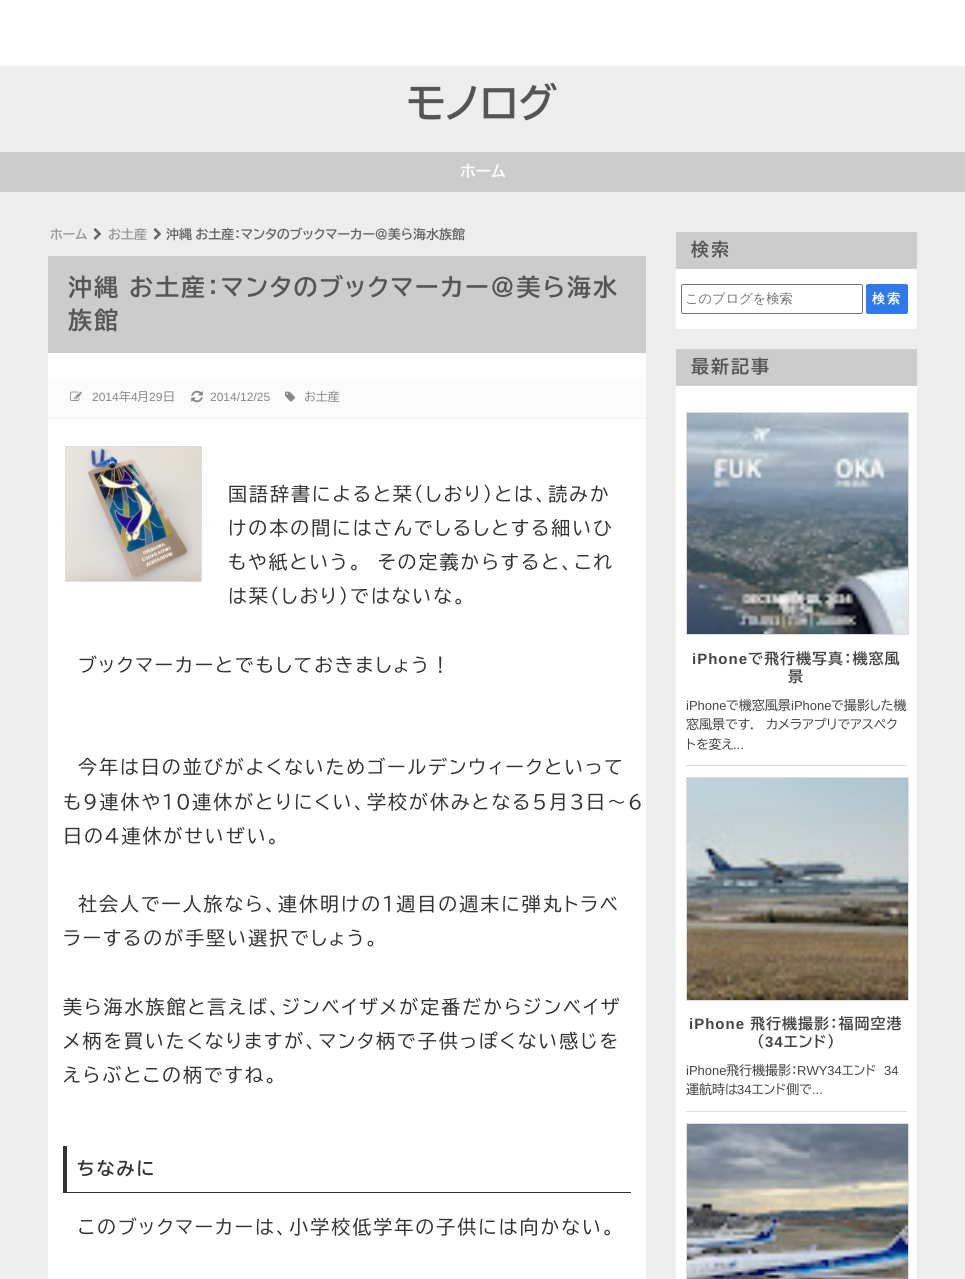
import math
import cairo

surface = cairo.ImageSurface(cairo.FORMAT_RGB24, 965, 1279)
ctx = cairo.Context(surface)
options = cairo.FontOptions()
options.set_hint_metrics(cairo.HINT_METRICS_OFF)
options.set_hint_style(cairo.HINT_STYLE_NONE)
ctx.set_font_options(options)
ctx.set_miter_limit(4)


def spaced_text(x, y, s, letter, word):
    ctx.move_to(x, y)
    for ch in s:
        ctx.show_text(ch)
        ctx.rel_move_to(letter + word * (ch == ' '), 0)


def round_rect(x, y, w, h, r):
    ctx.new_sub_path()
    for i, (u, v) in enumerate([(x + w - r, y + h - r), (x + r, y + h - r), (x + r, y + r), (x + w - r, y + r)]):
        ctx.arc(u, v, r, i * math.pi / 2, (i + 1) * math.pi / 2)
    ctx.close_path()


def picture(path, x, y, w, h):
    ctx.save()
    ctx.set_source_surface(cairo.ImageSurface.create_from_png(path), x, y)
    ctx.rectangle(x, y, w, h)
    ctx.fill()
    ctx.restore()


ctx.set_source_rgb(1, 1, 1)
ctx.paint()
ctx.set_source_rgb(0.933, 0.933, 0.933)
ctx.rectangle(0, 66, 965, 86)
ctx.fill()
ctx.select_font_face("BIZ UDPGothic", cairo.FONT_SLANT_NORMAL, cairo.FONT_WEIGHT_BOLD)
ctx.set_font_size(40)
ctx.set_source_rgb(0.333, 0.333, 0.333)
ctx.move_to(407, 118)
ctx.show_text("モノログ")
ctx.set_source_rgb(0.8, 0.8, 0.8)
ctx.rectangle(0, 152, 965, 40)
ctx.fill()
ctx.set_font_size(16)
ctx.set_source_rgb(1, 1, 1)
ctx.move_to(460, 177)
ctx.show_text("ホーム")
ctx.set_source_rgb(0.933, 0.933, 0.933)
ctx.rectangle(0, 192, 965, 1087)
ctx.fill()
ctx.set_font_size(13)
ctx.set_source_rgb(0.6, 0.6, 0.6)
ctx.move_to(50, 239)
ctx.show_text("ホーム")
picture("img1.png", 93, 228, 9, 12)
ctx.move_to(108, 239)
ctx.show_text("お土産")
picture("img1.png", 153, 228, 9, 12)
ctx.set_source_rgb(0.4, 0.4, 0.4)
spaced_text(166, 239, "沖縄 お土産：マンタのブックマーカー＠美ら海水族館", 0, -1)
ctx.set_source_rgb(1, 1, 1)
ctx.rectangle(48, 353, 598, 926)
ctx.fill()
ctx.set_source_rgb(0.8, 0.8, 0.8)
ctx.rectangle(48, 256, 598, 97)
ctx.fill()
ctx.set_font_size(24)
ctx.set_source_rgb(0.333, 0.333, 0.333)
spaced_text(68, 296, "沖縄 お土産：マンタのブックマーカー＠美ら海水", 2, -1)
spaced_text(68, 329, "族館", 2, 0)
ctx.set_source_rgb(0.984, 0.984, 0.984)
ctx.rectangle(48, 377, 598, 42)
ctx.fill()
ctx.new_path()
ctx.move_to(48, 418.5)
ctx.line_to(646, 418.5)
ctx.set_source_rgb(0.933, 0.933, 0.933)
ctx.set_line_width(1)
ctx.set_dash([3, 2])
ctx.stroke()
picture("img2.png", 70, 391, 12, 10)
ctx.select_font_face("Liberation Sans")
ctx.set_font_size(12)
ctx.set_source_rgb(0.533, 0.533, 0.533)
ctx.move_to(92, 401)
ctx.show_text("2014")
ctx.select_font_face("BIZ UDPGothic")
ctx.move_to(119, 401)
ctx.show_text("年")
ctx.select_font_face("Liberation Sans")
ctx.move_to(131, 401)
ctx.show_text("4")
ctx.select_font_face("BIZ UDPGothic")
ctx.move_to(137, 401)
ctx.show_text("月")
ctx.select_font_face("Liberation Sans")
ctx.move_to(149, 401)
ctx.show_text("29")
ctx.select_font_face("BIZ UDPGothic")
ctx.move_to(163, 401)
ctx.show_text("日")
picture("img3.png", 191, 390, 12, 13)
ctx.select_font_face("Liberation Sans")
ctx.move_to(210, 401)
ctx.show_text("2014/12/25")
picture("img4.png", 285, 391, 11, 11)
ctx.select_font_face("BIZ UDPGothic")
ctx.move_to(304, 401)
ctx.show_text("お土産")
ctx.rectangle(65.5, 446.5, 136, 135)
ctx.set_source_rgb(0.867, 0.867, 0.867)
ctx.set_dash([])
ctx.stroke()
picture("img5.png", 66, 447, 135, 134)
ctx.set_font_size(19)
ctx.set_source_rgb(0.2, 0.2, 0.2)
spaced_text(228, 501, "国語辞書によると栞（しおり）とは、読みか", 2, 0)
spaced_text(228, 535, "けの本の間にはさんでしるしとする細いひ", 2, 0)
spaced_text(228, 569, "もや紙という。　その定義からすると、これ", 2, 0)
spaced_text(228, 603, "は栞（しおり）ではないな。", 2, 0)
spaced_text(78, 672, "ブックマーカーとでもしておきましょう！", 2, 0)
spaced_text(78, 774, "今年は日の並びがよくないためゴールデンウィークといって", 2, 0)
spaced_text(63, 809, "も9連休や10連休がとりにくい、学校が休みとなる5月3日〜6", 2, 0)
spaced_text(63, 843, "日の４連休がせいぜい。", 2, 0)
spaced_text(78, 911, "社会人で一人旅なら、連休明けの1週目の週末に弾丸トラベ", 2, 0)
spaced_text(63, 945, "ラーするのが手堅い選択でしょう。", 2, 0)
spaced_text(63, 1014, "美ら海水族館と言えば、ジンベイザメが定番だからジンベイザ", 2, 0)
spaced_text(63, 1048, "メ柄を買いたくなりますが、マンタ柄で子供っぽくない感じを", 2, 0)
spaced_text(63, 1082, "えらぶとこの柄ですね。", 2, 0)
ctx.rectangle(63, 1192, 568, 1)
ctx.fill()
ctx.rectangle(63, 1146, 4, 47)
ctx.fill()
ctx.select_font_face("BIZ UDPGothic", cairo.FONT_SLANT_NORMAL, cairo.FONT_WEIGHT_BOLD)
ctx.set_font_size(18)
spaced_text(77, 1175, "ちなみに", 2, 0)
ctx.select_font_face("BIZ UDPGothic")
ctx.set_font_size(19)
spaced_text(78, 1234, "このブックマーカーは、小学校低学年の子供には向かない。", 2, 0)
ctx.set_source_rgb(1, 1, 1)
ctx.rectangle(676, 269, 241, 60)
ctx.fill()
ctx.set_source_rgb(0.8, 0.8, 0.8)
ctx.rectangle(676, 232, 241, 37)
ctx.fill()
ctx.select_font_face("BIZ UDPGothic", cairo.FONT_SLANT_NORMAL, cairo.FONT_WEIGHT_BOLD)
ctx.set_font_size(18)
ctx.set_source_rgb(0.333, 0.333, 0.333)
spaced_text(691, 256, "検索", 2, 0)
round_rect(681.5, 284.5, 181, 29, 1.5)
ctx.set_source_rgb(0.463, 0.463, 0.463)
ctx.stroke()
ctx.select_font_face("WenQuanYi Zen Hei Medium")
ctx.set_font_size(13.25)
ctx.set_source_rgb(0.459, 0.459, 0.459)
ctx.move_to(685, 303)
ctx.show_text("このブログを検索")
ctx.set_source_rgb(0.188, 0.475, 0.929)
round_rect(866, 284, 42, 30, 2)
ctx.fill()
ctx.select_font_face("WenQuanYi Zen Hei", cairo.FONT_SLANT_NORMAL, cairo.FONT_WEIGHT_BOLD)
ctx.set_font_size(13)
ctx.set_source_rgb(1, 1, 1)
spaced_text(872, 303, "検索", 2, 0)
ctx.rectangle(676, 386, 241, 893)
ctx.fill()
ctx.set_source_rgb(0.8, 0.8, 0.8)
ctx.rectangle(676, 349, 241, 37)
ctx.fill()
ctx.select_font_face("BIZ UDPGothic", cairo.FONT_SLANT_NORMAL, cairo.FONT_WEIGHT_BOLD)
ctx.set_font_size(18)
ctx.set_source_rgb(0.333, 0.333, 0.333)
spaced_text(691, 373, "最新記事", 2, 0)
ctx.set_source_rgb(0.867, 0.867, 0.867)
ctx.rectangle(686, 765, 221, 1)
ctx.fill()
ctx.rectangle(686.5, 412.5, 222, 222)
ctx.stroke()
picture("img6.png", 687, 413, 221, 221)
ctx.select_font_face("Liberation Sans", cairo.FONT_SLANT_NORMAL, cairo.FONT_WEIGHT_BOLD)
ctx.set_font_size(15)
ctx.set_source_rgb(0.267, 0.267, 0.267)
spaced_text(692, 664, "iPhone", 1, 0)
ctx.select_font_face("BIZ UDPGothic", cairo.FONT_SLANT_NORMAL, cairo.FONT_WEIGHT_BOLD)
spaced_text(748, 664, "で飛行機写真：機窓風", 1, 0)
spaced_text(788, 682, "景", 1, 0)
ctx.select_font_face("Liberation Sans")
ctx.set_font_size(13)
ctx.move_to(686, 710)
ctx.show_text("iPhone")
ctx.select_font_face("BIZ UDPGothic")
ctx.move_to(726, 710)
ctx.show_text("で機窓風景")
ctx.select_font_face("Liberation Sans")
ctx.move_to(791, 710)
ctx.show_text("iPhone")
ctx.select_font_face("BIZ UDPGothic")
ctx.move_to(831, 710)
ctx.show_text("で撮影した機")
ctx.move_to(686, 729)
ctx.show_text("窓風景です．　カメラアプリでアスペク")
ctx.move_to(686, 749)
ctx.show_text("トを変え")
ctx.select_font_face("Liberation Sans")
ctx.move_to(733, 749)
ctx.show_text("...")
ctx.set_source_rgb(0.867, 0.867, 0.867)
ctx.rectangle(686, 1111, 221, 1)
ctx.fill()
ctx.rectangle(686.5, 777.5, 222, 223)
ctx.stroke()
picture("img7.png", 687, 778, 221, 222)
ctx.select_font_face("Liberation Sans", cairo.FONT_SLANT_NORMAL, cairo.FONT_WEIGHT_BOLD)
ctx.set_font_size(15)
ctx.set_source_rgb(0.267, 0.267, 0.267)
spaced_text(689, 1029, "iPhone", 1, 0)
ctx.select_font_face("BIZ UDPGothic", cairo.FONT_SLANT_NORMAL, cairo.FONT_WEIGHT_BOLD)
spaced_text(750, 1029, "飛行機撮影：福岡空港", 1, 0)
spaced_text(757, 1047, "（", 1, 0)
ctx.select_font_face("Liberation Sans", cairo.FONT_SLANT_NORMAL, cairo.FONT_WEIGHT_BOLD)
spaced_text(765, 1047, "34", 1, 0)
ctx.select_font_face("BIZ UDPGothic", cairo.FONT_SLANT_NORMAL, cairo.FONT_WEIGHT_BOLD)
spaced_text(784, 1047, "エンド）", 1, 0)
ctx.select_font_face("Liberation Sans")
ctx.set_font_size(13)
ctx.move_to(686, 1075)
ctx.show_text("iPhone")
ctx.select_font_face("BIZ UDPGothic")
ctx.move_to(726, 1075)
ctx.show_text("飛行機撮影：")
ctx.select_font_face("Liberation Sans")
ctx.move_to(797, 1075)
ctx.show_text("RWY34")
ctx.select_font_face("BIZ UDPGothic")
ctx.move_to(842, 1075)
ctx.show_text("エンド")
ctx.select_font_face("Liberation Sans")
ctx.move_to(884, 1075)
ctx.show_text("34")
ctx.select_font_face("BIZ UDPGothic")
ctx.move_to(686, 1094)
ctx.show_text("運航時は")
ctx.select_font_face("Liberation Sans")
ctx.move_to(737, 1094)
ctx.show_text("34")
ctx.select_font_face("BIZ UDPGothic")
ctx.move_to(752, 1094)
ctx.show_text("エンド側で")
ctx.select_font_face("Liberation Sans")
ctx.move_to(812, 1094)
ctx.show_text("...")
ctx.rectangle(686.5, 1123.5, 222, 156)
ctx.set_source_rgb(0.867, 0.867, 0.867)
ctx.stroke()
picture("img8.png", 687, 1124, 221, 155)
surface.write_to_png("page.png")
